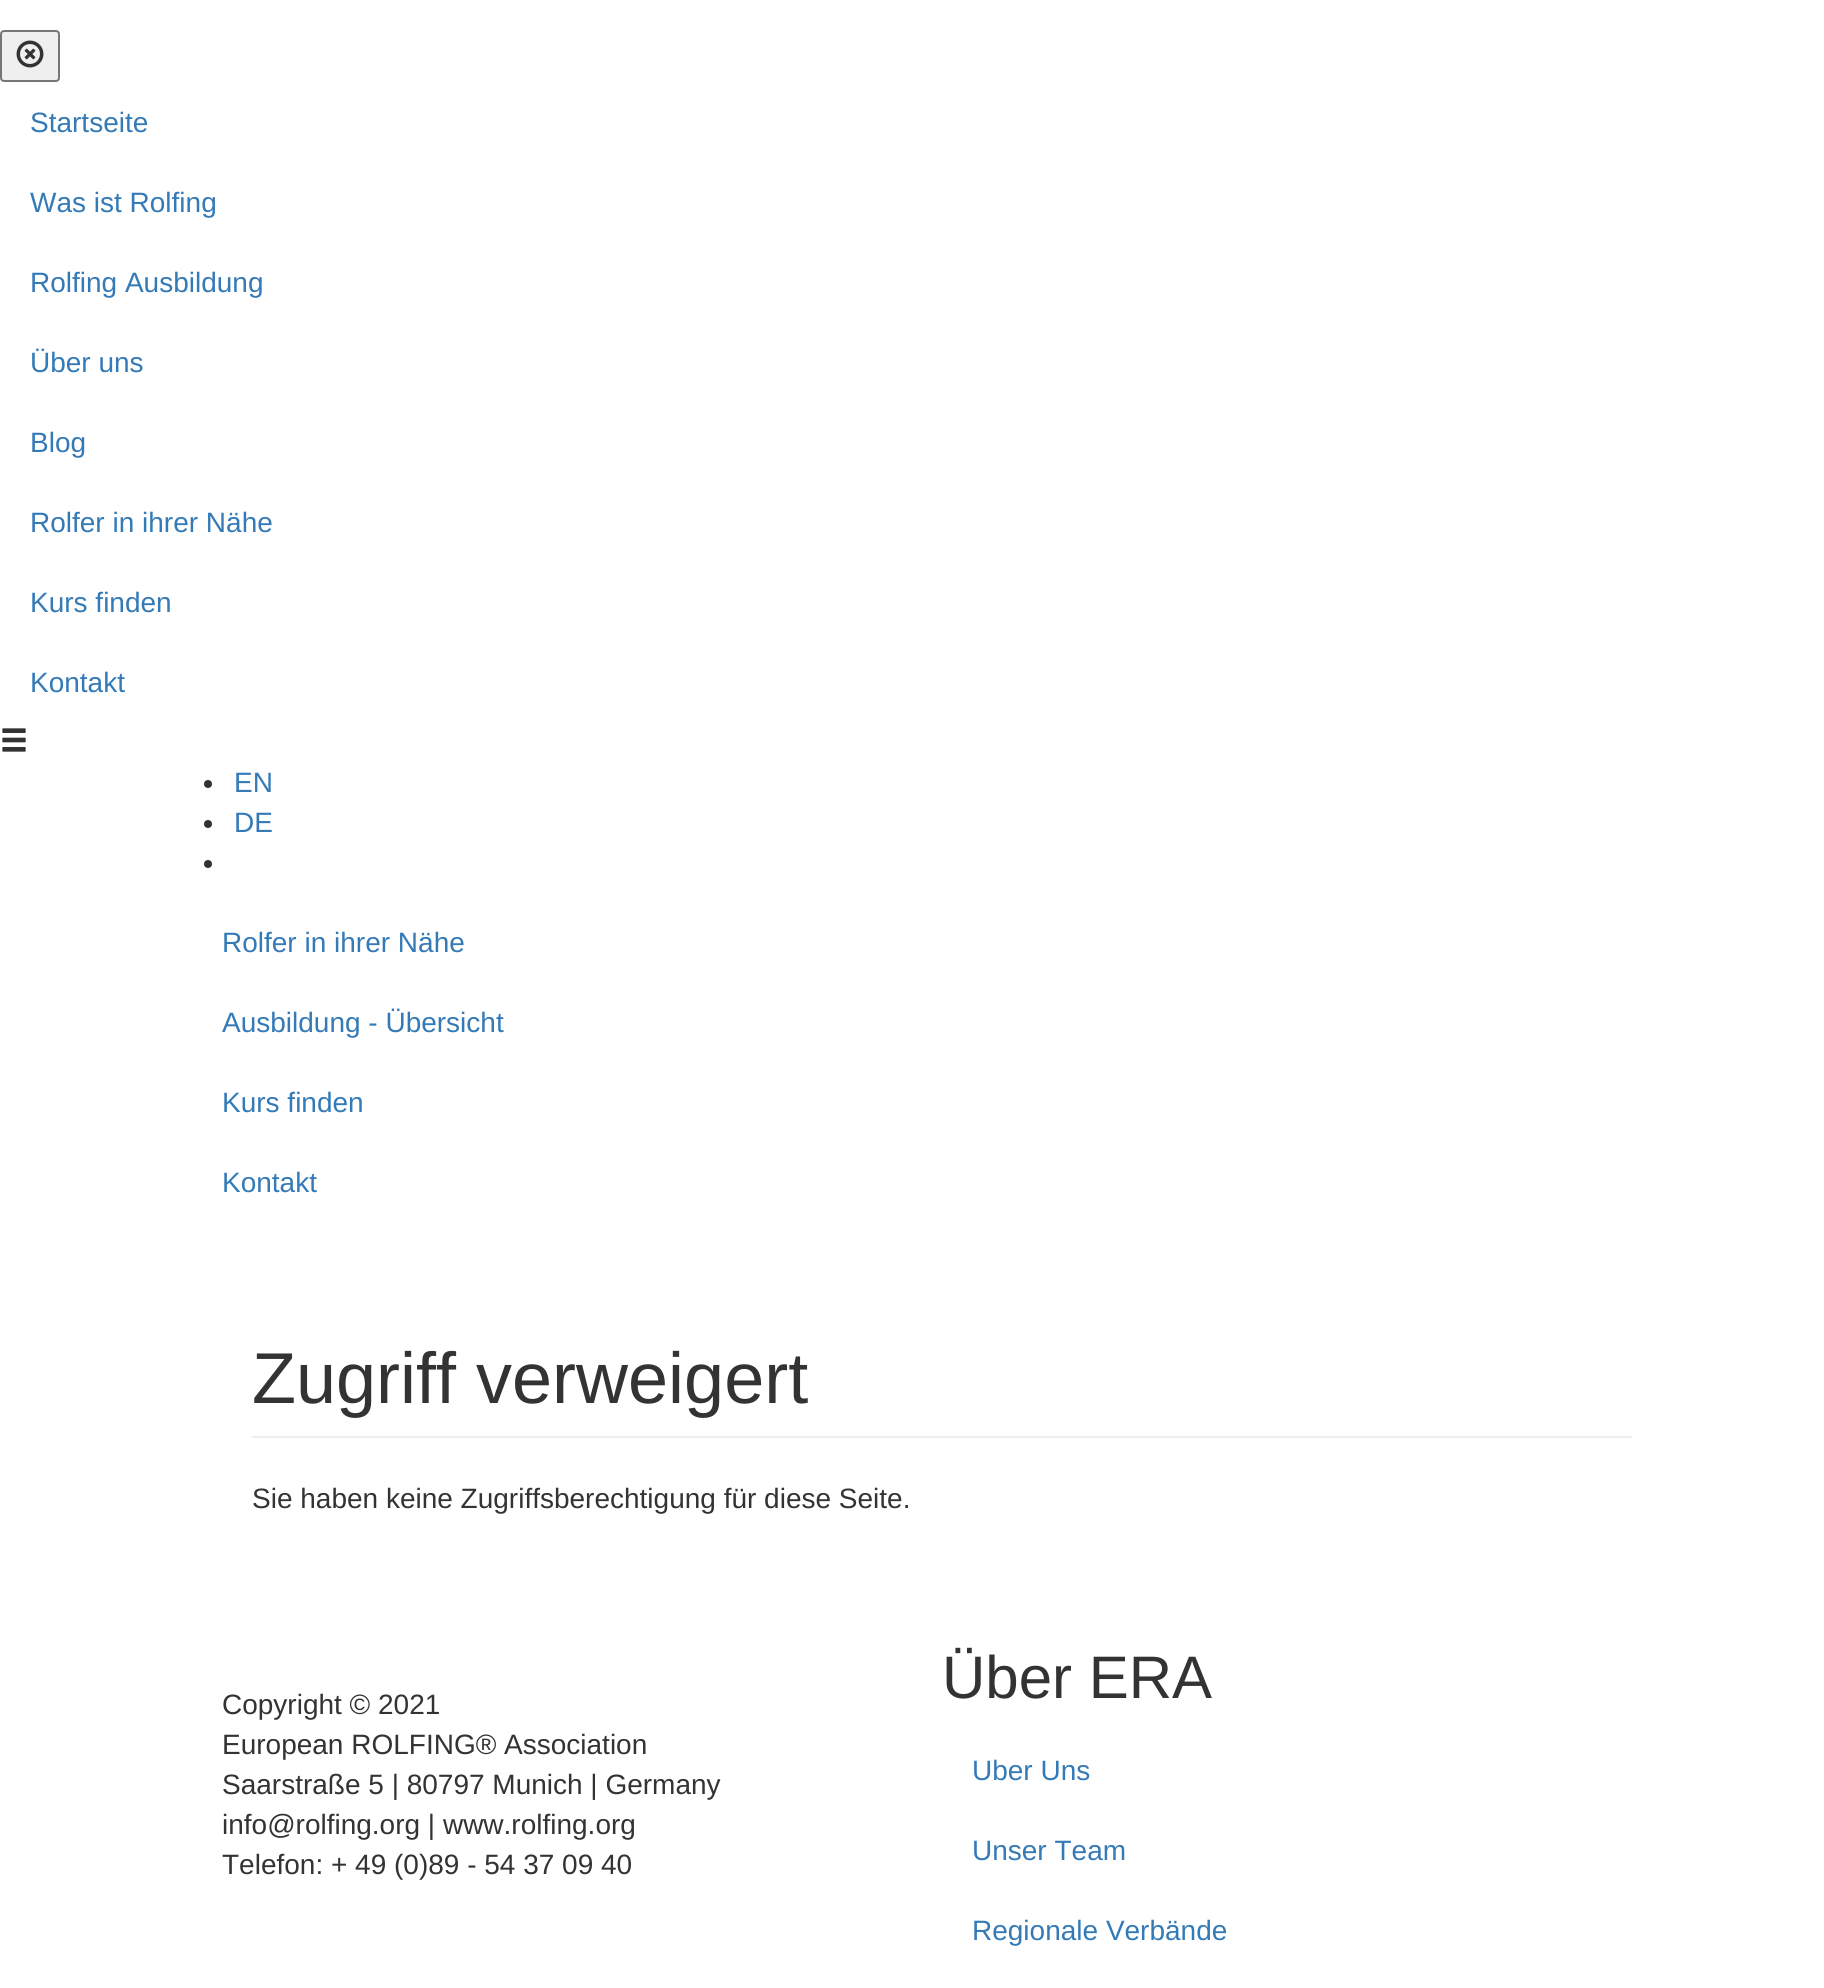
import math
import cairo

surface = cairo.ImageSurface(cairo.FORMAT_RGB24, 1824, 1988)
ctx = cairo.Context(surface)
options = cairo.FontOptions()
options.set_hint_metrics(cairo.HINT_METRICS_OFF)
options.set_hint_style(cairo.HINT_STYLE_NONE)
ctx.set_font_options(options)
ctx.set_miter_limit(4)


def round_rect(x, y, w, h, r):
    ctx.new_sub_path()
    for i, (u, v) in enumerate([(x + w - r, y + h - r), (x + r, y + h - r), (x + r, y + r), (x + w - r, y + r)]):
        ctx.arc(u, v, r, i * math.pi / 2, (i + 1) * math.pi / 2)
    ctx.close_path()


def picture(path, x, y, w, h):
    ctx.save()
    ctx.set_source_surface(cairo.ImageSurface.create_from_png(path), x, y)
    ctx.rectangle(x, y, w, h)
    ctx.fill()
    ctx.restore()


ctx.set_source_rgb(1, 1, 1)
ctx.paint()
ctx.set_source_rgb(0.937, 0.937, 0.937)
round_rect(1, 31, 58, 50, 3)
ctx.fill_preserve()
ctx.set_source_rgb(0.463, 0.463, 0.463)
ctx.stroke()
picture("img1.png", 16, 40, 28, 28)
ctx.select_font_face("Liberation Sans")
ctx.set_font_size(28)
ctx.set_source_rgb(0.2, 0.478, 0.718)
ctx.move_to(30, 132)
ctx.show_text("Startseite")
ctx.move_to(30, 212)
ctx.show_text("Was ist Rolfing")
ctx.move_to(30, 292)
ctx.show_text("Rolfing Ausbildung")
ctx.move_to(30, 372)
ctx.show_text("Über uns")
ctx.move_to(30, 452)
ctx.show_text("Blog")
ctx.move_to(30, 532)
ctx.show_text("Rolfer in ihrer Nähe")
ctx.move_to(30, 612)
ctx.show_text("Kurs finden")
ctx.move_to(30, 692)
ctx.show_text("Kontakt")
picture("img2.png", 2, 728, 24, 24)
ctx.set_source_rgb(0.2, 0.2, 0.2)
ctx.arc(208, 784, 4, 0, 2 * math.pi)
ctx.fill()
ctx.set_source_rgb(0.2, 0.478, 0.718)
ctx.move_to(234, 792)
ctx.show_text("EN")
ctx.set_source_rgb(0.2, 0.2, 0.2)
ctx.new_path()
ctx.arc(208, 824, 4, 0, 2 * math.pi)
ctx.fill()
ctx.set_source_rgb(0.2, 0.478, 0.718)
ctx.move_to(234, 832)
ctx.show_text("DE")
ctx.set_source_rgb(0.2, 0.2, 0.2)
ctx.new_path()
ctx.arc(208, 864, 4, 0, 2 * math.pi)
ctx.fill()
ctx.set_source_rgb(0.2, 0.478, 0.718)
ctx.move_to(222, 952)
ctx.show_text("Rolfer in ihrer Nähe")
ctx.move_to(222, 1032)
ctx.show_text("Ausbildung - Übersicht")
ctx.move_to(222, 1112)
ctx.show_text("Kurs finden")
ctx.move_to(222, 1192)
ctx.show_text("Kontakt")
ctx.set_source_rgb(0.933, 0.933, 0.933)
ctx.rectangle(252, 1436, 1380, 2)
ctx.fill()
ctx.set_font_size(72)
ctx.set_source_rgb(0.2, 0.2, 0.2)
ctx.move_to(252, 1403)
ctx.show_text("Zugriff verweigert")
ctx.set_font_size(28)
ctx.move_to(252, 1508)
ctx.show_text("Sie haben keine Zugriffsberechtigung für diese Seite.")
ctx.move_to(222, 1714)
ctx.show_text("Copyright © 2021")
ctx.move_to(222, 1754)
ctx.show_text("European ROLFING® Association")
ctx.move_to(222, 1794)
ctx.show_text("Saarstraße 5 | 80797 Munich | Germany")
ctx.move_to(222, 1834)
ctx.show_text("info@rolfing.org | www.rolfing.org")
ctx.move_to(222, 1874)
ctx.show_text("Telefon: + 49 (0)89 - 54 37 09 40")
ctx.set_font_size(60)
ctx.move_to(942, 1698)
ctx.show_text("Über ERA")
ctx.set_font_size(28)
ctx.set_source_rgb(0.2, 0.478, 0.718)
ctx.move_to(972, 1780)
ctx.show_text("Uber Uns")
ctx.move_to(972, 1860)
ctx.show_text("Unser Team")
ctx.move_to(972, 1940)
ctx.show_text("Regionale Verbände")
surface.write_to_png("page.png")
